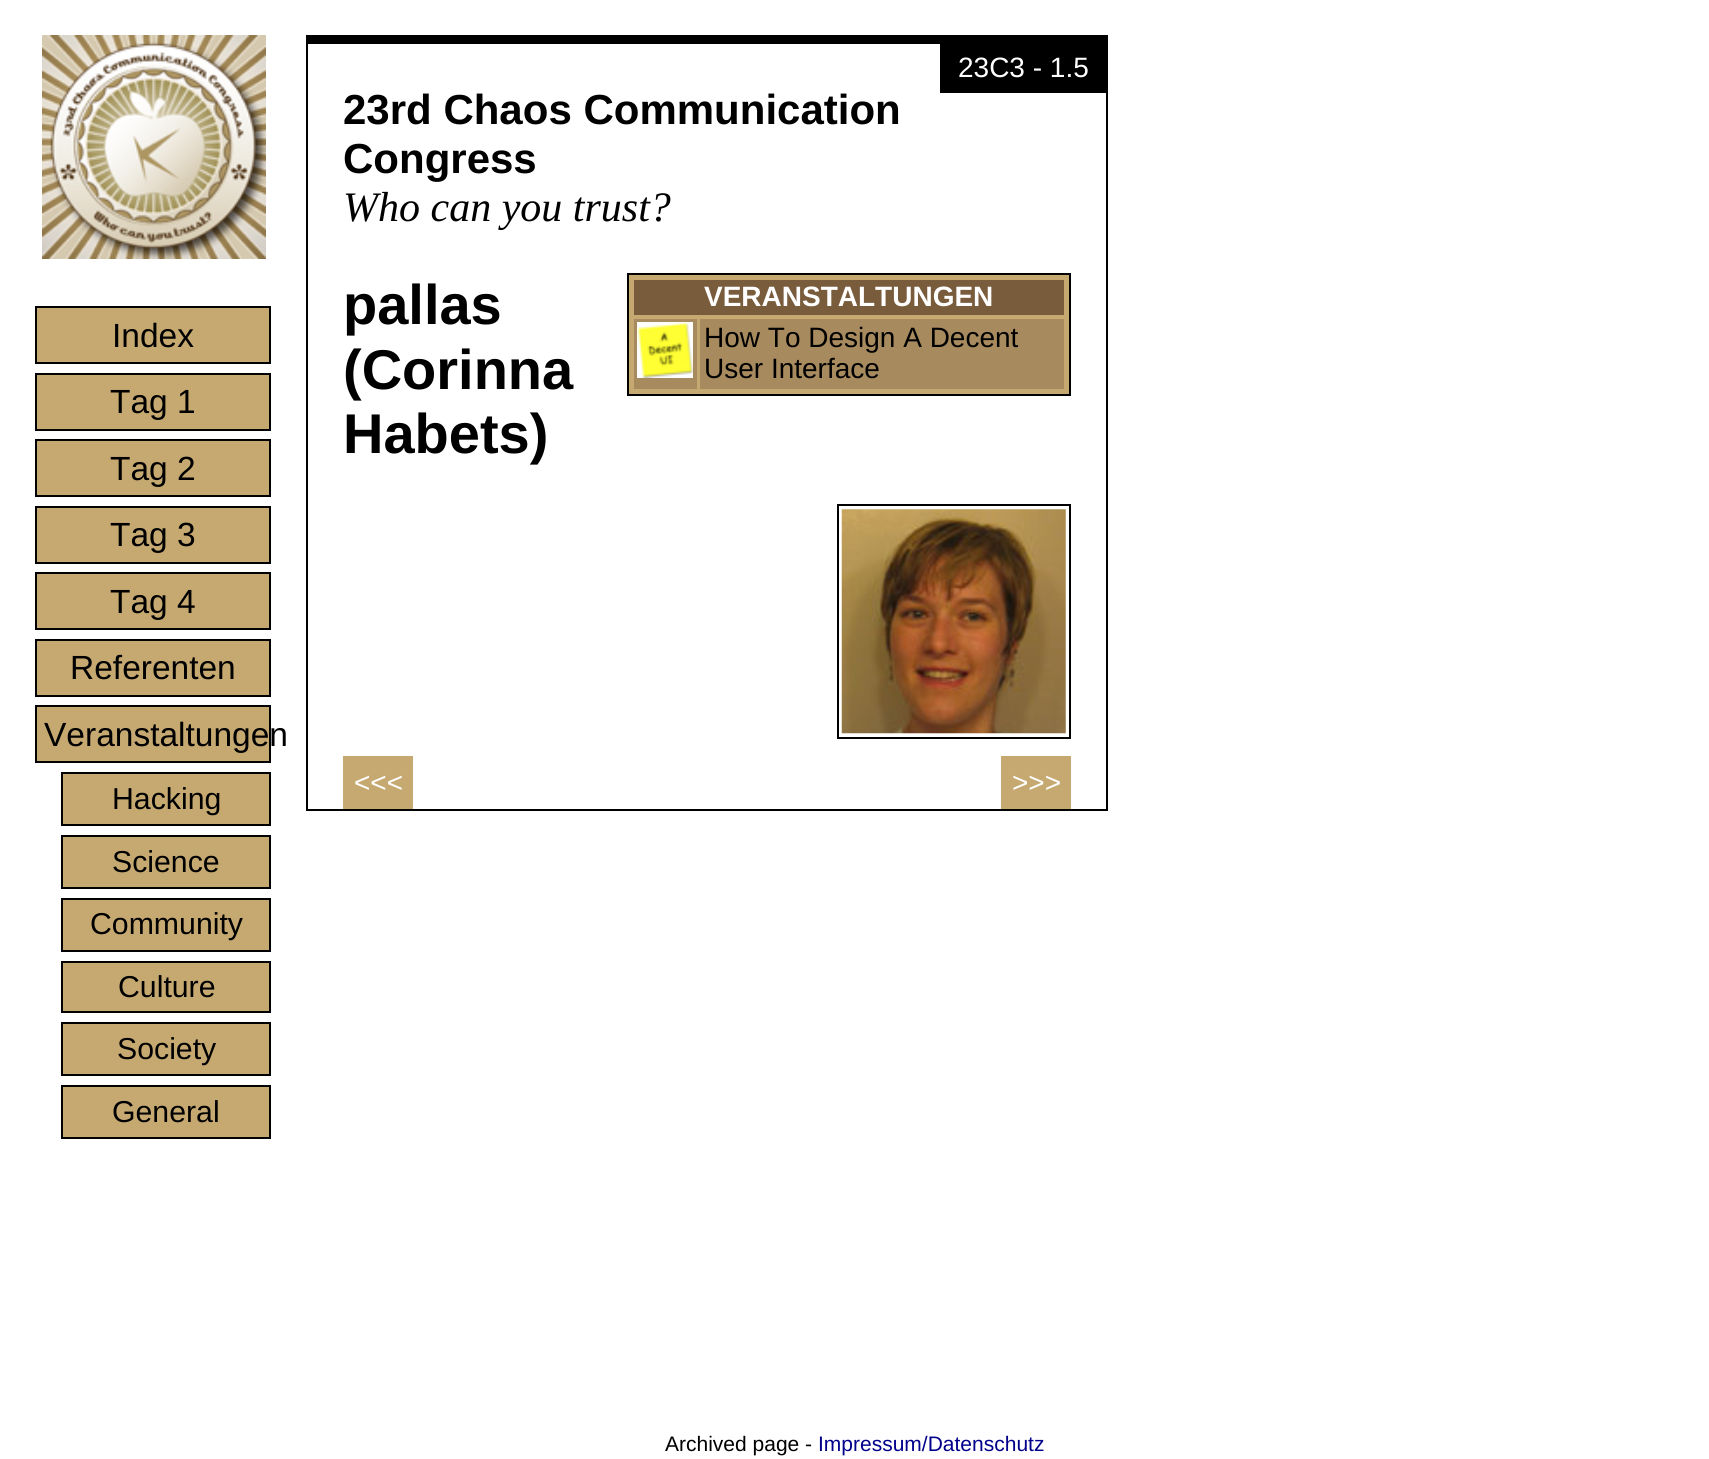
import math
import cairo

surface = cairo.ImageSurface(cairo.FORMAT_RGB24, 1709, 1459)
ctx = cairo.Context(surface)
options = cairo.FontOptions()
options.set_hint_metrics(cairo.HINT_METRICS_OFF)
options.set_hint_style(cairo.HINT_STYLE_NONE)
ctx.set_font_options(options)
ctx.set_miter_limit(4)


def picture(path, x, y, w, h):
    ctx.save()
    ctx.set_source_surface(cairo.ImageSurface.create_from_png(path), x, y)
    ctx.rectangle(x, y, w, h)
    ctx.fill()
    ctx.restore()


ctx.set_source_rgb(1, 1, 1)
ctx.paint()
picture("img1.png", 42, 35, 224, 224)
ctx.set_source_rgb(0, 0, 0)
ctx.rectangle(308, 35, 798, 9)
ctx.fill()
ctx.rectangle(1106, 35, 2, 775)
ctx.fill()
ctx.rectangle(306, 809, 802, 2)
ctx.fill()
ctx.rectangle(306, 35, 2, 775)
ctx.fill()
ctx.rectangle(940, 44, 166, 49)
ctx.fill()
ctx.select_font_face("Liberation Sans")
ctx.set_font_size(28)
ctx.set_source_rgb(1, 1, 1)
ctx.move_to(958, 77)
ctx.show_text("23C3 - 1.5")
ctx.select_font_face("Liberation Sans", cairo.FONT_SLANT_NORMAL, cairo.FONT_WEIGHT_BOLD)
ctx.set_font_size(42)
ctx.set_source_rgb(0, 0, 0)
ctx.move_to(343, 124)
ctx.show_text("23rd Chaos Communication")
ctx.move_to(343, 173)
ctx.show_text("Congress")
ctx.select_font_face("Liberation Serif", cairo.FONT_SLANT_ITALIC)
ctx.move_to(343, 221)
ctx.show_text("Who can you trust?")
ctx.select_font_face("Liberation Sans", cairo.FONT_SLANT_NORMAL, cairo.FONT_WEIGHT_BOLD)
ctx.set_font_size(56)
ctx.move_to(343, 324)
ctx.show_text("pallas")
ctx.move_to(343, 389)
ctx.show_text("(Corinna")
ctx.move_to(343, 453)
ctx.show_text("Habets)")
ctx.set_source_rgb(0.776, 0.663, 0.443)
ctx.rectangle(628, 274, 442, 121)
ctx.fill_preserve()
ctx.set_source_rgb(0, 0, 0)
ctx.stroke()
ctx.set_source_rgb(0.475, 0.361, 0.235)
ctx.rectangle(634, 280, 430, 35)
ctx.fill()
ctx.set_font_size(28)
ctx.set_source_rgb(1, 1, 1)
ctx.move_to(704, 306)
ctx.show_text("VERANSTALTUNGEN")
ctx.set_source_rgb(0.655, 0.541, 0.369)
ctx.rectangle(634, 319, 63, 70)
ctx.fill()
picture("img2.png", 637, 322, 56, 56)
ctx.rectangle(700, 319, 364, 70)
ctx.fill()
ctx.select_font_face("Liberation Sans")
ctx.set_source_rgb(0, 0, 0)
ctx.move_to(704, 347)
ctx.show_text("How To Design A Decent")
ctx.move_to(704, 378)
ctx.show_text("User Interface")
ctx.rectangle(838, 505, 232, 233)
ctx.stroke()
picture("img3.png", 841, 509, 225, 225)
ctx.set_source_rgb(0.776, 0.663, 0.443)
ctx.rectangle(343, 756, 70, 53)
ctx.fill()
ctx.set_source_rgb(1, 1, 1)
ctx.move_to(354, 792)
ctx.show_text("<<<")
ctx.set_source_rgb(0.776, 0.663, 0.443)
ctx.rectangle(1001, 756, 70, 53)
ctx.fill()
ctx.set_source_rgb(1, 1, 1)
ctx.move_to(1012, 792)
ctx.show_text(">>>")
ctx.set_source_rgb(0.776, 0.663, 0.443)
ctx.rectangle(36, 307, 234, 56)
ctx.fill_preserve()
ctx.set_source_rgb(0, 0, 0)
ctx.stroke()
ctx.set_font_size(33.5)
ctx.move_to(112, 347)
ctx.show_text("Index")
ctx.set_source_rgb(0.776, 0.663, 0.443)
ctx.rectangle(36, 374, 234, 56)
ctx.fill_preserve()
ctx.set_source_rgb(0, 0, 0)
ctx.stroke()
ctx.move_to(110, 413)
ctx.show_text("Tag 1")
ctx.set_source_rgb(0.776, 0.663, 0.443)
ctx.rectangle(36, 440, 234, 56)
ctx.fill_preserve()
ctx.set_source_rgb(0, 0, 0)
ctx.stroke()
ctx.move_to(110, 480)
ctx.show_text("Tag 2")
ctx.set_source_rgb(0.776, 0.663, 0.443)
ctx.rectangle(36, 507, 234, 56)
ctx.fill_preserve()
ctx.set_source_rgb(0, 0, 0)
ctx.stroke()
ctx.move_to(110, 546)
ctx.show_text("Tag 3")
ctx.set_source_rgb(0.776, 0.663, 0.443)
ctx.rectangle(36, 573, 234, 56)
ctx.fill_preserve()
ctx.set_source_rgb(0, 0, 0)
ctx.stroke()
ctx.move_to(110, 613)
ctx.show_text("Tag 4")
ctx.set_source_rgb(0.776, 0.663, 0.443)
ctx.rectangle(36, 640, 234, 56)
ctx.fill_preserve()
ctx.set_source_rgb(0, 0, 0)
ctx.stroke()
ctx.move_to(70, 679)
ctx.show_text("Referenten")
ctx.set_source_rgb(0.776, 0.663, 0.443)
ctx.rectangle(36, 706, 234, 56)
ctx.fill_preserve()
ctx.set_source_rgb(0, 0, 0)
ctx.stroke()
ctx.move_to(44, 746)
ctx.show_text("Veranstaltungen")
ctx.set_source_rgb(0.776, 0.663, 0.443)
ctx.rectangle(62, 773, 208, 52)
ctx.fill_preserve()
ctx.set_source_rgb(0, 0, 0)
ctx.stroke()
ctx.set_font_size(30.25)
ctx.move_to(112, 809)
ctx.show_text("Hacking")
ctx.set_source_rgb(0.776, 0.663, 0.443)
ctx.rectangle(62, 836, 208, 52)
ctx.fill_preserve()
ctx.set_source_rgb(0, 0, 0)
ctx.stroke()
ctx.move_to(112, 872)
ctx.show_text("Science")
ctx.set_source_rgb(0.776, 0.663, 0.443)
ctx.rectangle(62, 899, 208, 52)
ctx.fill_preserve()
ctx.set_source_rgb(0, 0, 0)
ctx.stroke()
ctx.move_to(90, 934)
ctx.show_text("Community")
ctx.set_source_rgb(0.776, 0.663, 0.443)
ctx.rectangle(62, 962, 208, 50)
ctx.fill_preserve()
ctx.set_source_rgb(0, 0, 0)
ctx.stroke()
ctx.move_to(118, 997)
ctx.show_text("Culture")
ctx.set_source_rgb(0.776, 0.663, 0.443)
ctx.rectangle(62, 1023, 208, 52)
ctx.fill_preserve()
ctx.set_source_rgb(0, 0, 0)
ctx.stroke()
ctx.move_to(117, 1059)
ctx.show_text("Society")
ctx.set_source_rgb(0.776, 0.663, 0.443)
ctx.rectangle(62, 1086, 208, 52)
ctx.fill_preserve()
ctx.set_source_rgb(0, 0, 0)
ctx.stroke()
ctx.move_to(112, 1122)
ctx.show_text("General")
ctx.set_font_size(21)
ctx.move_to(665, 1451)
ctx.show_text("Archived page -")
ctx.set_source_rgb(0, 0, 0.545)
ctx.move_to(818, 1451)
ctx.show_text("Impressum/Datenschutz")
surface.write_to_png("page.png")
